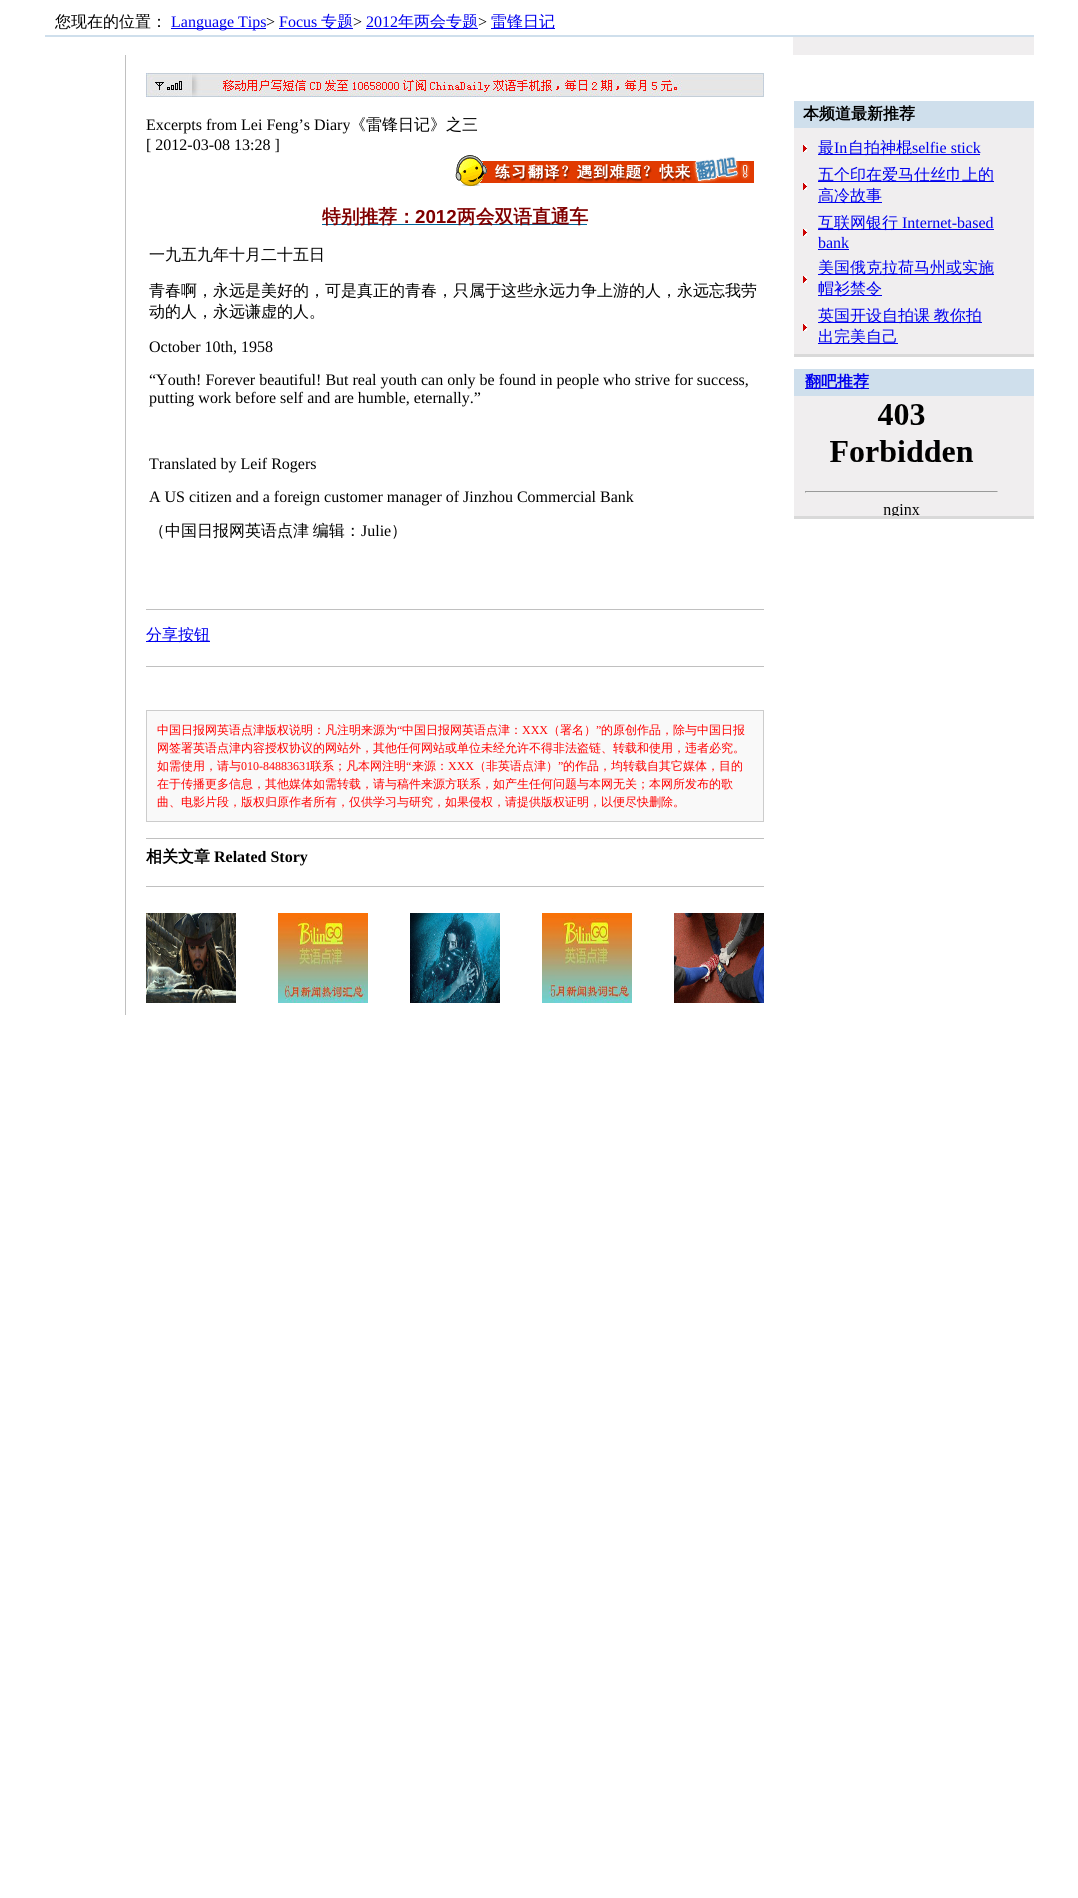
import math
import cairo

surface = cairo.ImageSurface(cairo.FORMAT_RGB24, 1078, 1898)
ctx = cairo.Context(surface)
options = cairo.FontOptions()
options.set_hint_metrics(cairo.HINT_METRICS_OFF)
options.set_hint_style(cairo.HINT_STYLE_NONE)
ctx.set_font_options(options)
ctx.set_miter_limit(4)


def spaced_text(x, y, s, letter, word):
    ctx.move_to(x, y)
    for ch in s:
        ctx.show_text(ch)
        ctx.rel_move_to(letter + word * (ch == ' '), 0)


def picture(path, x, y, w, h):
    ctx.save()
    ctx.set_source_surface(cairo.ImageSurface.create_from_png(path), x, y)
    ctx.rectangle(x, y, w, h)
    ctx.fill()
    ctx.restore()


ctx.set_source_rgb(1, 1, 1)
ctx.paint()
ctx.select_font_face("WenQuanYi Zen Hei Medium")
ctx.set_font_size(16)
ctx.set_source_rgb(0, 0, 0)
ctx.move_to(55, 27)
ctx.show_text("您现在的位置：")
ctx.set_source_rgb(0, 0, 0.933)
ctx.rectangle(171, 28, 95, 1)
ctx.fill()
ctx.select_font_face("Liberation Serif")
ctx.move_to(171, 27)
ctx.show_text("Language Tips")
ctx.set_source_rgb(0, 0, 0)
ctx.move_to(266, 27)
ctx.show_text(">")
ctx.set_source_rgb(0, 0, 0.933)
ctx.move_to(279, 27)
ctx.show_text("Focus")
ctx.rectangle(279, 28, 74, 1)
ctx.fill()
ctx.select_font_face("WenQuanYi Zen Hei Medium")
ctx.move_to(321, 27)
ctx.show_text("专题")
ctx.select_font_face("Liberation Serif")
ctx.set_source_rgb(0, 0, 0)
ctx.move_to(353, 27)
ctx.show_text(">")
ctx.set_source_rgb(0, 0, 0.933)
ctx.move_to(366, 27)
ctx.show_text("2012")
ctx.rectangle(366, 28, 112, 1)
ctx.fill()
ctx.select_font_face("WenQuanYi Zen Hei Medium")
ctx.move_to(398, 27)
ctx.show_text("年两会专题")
ctx.select_font_face("Liberation Serif")
ctx.set_source_rgb(0, 0, 0)
ctx.move_to(478, 27)
ctx.show_text(">")
ctx.set_source_rgb(0, 0, 0.933)
ctx.rectangle(491, 28, 64, 1)
ctx.fill()
ctx.select_font_face("WenQuanYi Zen Hei Medium")
ctx.move_to(491, 27)
ctx.show_text("雷锋日记")
ctx.set_source_rgb(0.812, 0.875, 0.922)
ctx.rectangle(45, 35, 989, 2)
ctx.fill()
ctx.set_source_rgb(0.941, 0.933, 0.937)
ctx.rectangle(793, 37, 241, 18)
ctx.fill()
ctx.set_source_rgb(0.753, 0.753, 0.753)
ctx.rectangle(125, 55, 1, 960)
ctx.fill()
picture("img1.png", 146, 73, 618, 24)
ctx.select_font_face("Liberation Serif")
ctx.set_source_rgb(0, 0, 0)
ctx.move_to(146, 130)
ctx.show_text("Excerpts from Lei Feng’s Diary")
ctx.select_font_face("WenQuanYi Zen Hei Medium")
ctx.move_to(350, 130)
ctx.show_text("《雷锋日记》之三")
ctx.select_font_face("Liberation Serif")
ctx.move_to(146, 150)
ctx.show_text("[ 2012-03-08 13:28 ]")
picture("img2.png", 455, 155, 299, 32)
ctx.set_source_rgb(0, 0.4, 0.6)
ctx.rectangle(322, 224, 265, 1)
ctx.fill()
ctx.select_font_face("WenQuanYi Zen Hei", cairo.FONT_SLANT_NORMAL, cairo.FONT_WEIGHT_BOLD)
ctx.set_font_size(18.75)
ctx.set_source_rgb(0.502, 0, 0)
ctx.move_to(322, 223)
ctx.show_text("特别推荐：")
ctx.select_font_face("Liberation Sans", cairo.FONT_SLANT_NORMAL, cairo.FONT_WEIGHT_BOLD)
ctx.move_to(415, 223)
ctx.show_text("2012")
ctx.select_font_face("WenQuanYi Zen Hei", cairo.FONT_SLANT_NORMAL, cairo.FONT_WEIGHT_BOLD)
ctx.move_to(457, 223)
ctx.show_text("两会双语直通车")
ctx.select_font_face("WenQuanYi Zen Hei Medium")
ctx.set_font_size(16)
ctx.set_source_rgb(0, 0, 0)
ctx.move_to(149, 260)
ctx.show_text("一九五九年十月二十五日")
ctx.move_to(149, 296)
ctx.show_text("青春啊，永远是美好的，可是真正的青春，只属于这些永远力争上游的人，永远忘我劳")
ctx.move_to(149, 317)
ctx.show_text("动的人，永远谦虚的人。")
ctx.select_font_face("Liberation Serif")
ctx.move_to(149, 352)
ctx.show_text("October 10th, 1958")
ctx.move_to(149, 385)
ctx.show_text("“Youth! Forever beautiful! But real youth can only be found in people who strive for success,")
ctx.move_to(149, 403)
ctx.show_text("putting work before self and are humble, eternally.”")
ctx.move_to(149, 469)
ctx.show_text("Translated by Leif Rogers")
ctx.move_to(149, 502)
ctx.show_text("A US citizen and a foreign customer manager of Jinzhou Commercial Bank")
ctx.select_font_face("WenQuanYi Zen Hei Medium")
spaced_text(149, 536, "（中国日报网英语点津 编辑：", 0, -1)
ctx.select_font_face("Liberation Serif")
ctx.move_to(361, 536)
ctx.show_text("Julie")
ctx.select_font_face("WenQuanYi Zen Hei Medium")
ctx.move_to(391, 536)
ctx.show_text("）")
ctx.set_source_rgb(0.753, 0.753, 0.753)
ctx.rectangle(146, 609, 618, 1)
ctx.fill()
ctx.set_source_rgb(0, 0, 0.933)
ctx.rectangle(146, 641, 64, 1)
ctx.fill()
ctx.move_to(146, 640)
ctx.show_text("分享按钮")
ctx.set_source_rgb(0.753, 0.753, 0.753)
ctx.rectangle(146, 666, 618, 1)
ctx.fill()
ctx.set_source_rgb(0.8, 0.8, 0.8)
ctx.rectangle(146, 710, 618, 112)
ctx.fill()
ctx.set_source_rgb(0.976, 0.976, 0.976)
ctx.rectangle(147, 711, 616, 110)
ctx.fill()
ctx.set_font_size(12)
ctx.set_source_rgb(1, 0, 0)
ctx.move_to(157, 734)
ctx.show_text("中国日报网英语点津版权说明：凡注明来源为")
ctx.select_font_face("Liberation Serif")
ctx.move_to(397, 734)
ctx.show_text("“")
ctx.select_font_face("WenQuanYi Zen Hei Medium")
ctx.move_to(402, 734)
ctx.show_text("中国日报网英语点津：")
ctx.select_font_face("Liberation Serif")
ctx.move_to(522, 734)
ctx.show_text("XXX")
ctx.select_font_face("WenQuanYi Zen Hei Medium")
ctx.move_to(548, 734)
ctx.show_text("（署名）")
ctx.select_font_face("Liberation Serif")
ctx.move_to(596, 734)
ctx.show_text("”")
ctx.select_font_face("WenQuanYi Zen Hei Medium")
ctx.move_to(601, 734)
ctx.show_text("的原创作品，除与中国日报")
ctx.move_to(157, 752)
ctx.show_text("网签署英语点津内容授权协议的网站外，其他任何网站或单位未经允许不得非法盗链、转载和使用，违者必究。")
ctx.move_to(157, 770)
ctx.show_text("如需使用，请与")
ctx.select_font_face("Liberation Serif")
ctx.move_to(241, 770)
ctx.show_text("010-84883631")
ctx.select_font_face("WenQuanYi Zen Hei Medium")
ctx.move_to(310, 770)
ctx.show_text("联系；凡本网注明")
ctx.select_font_face("Liberation Serif")
ctx.move_to(406, 770)
ctx.show_text("“")
ctx.select_font_face("WenQuanYi Zen Hei Medium")
ctx.move_to(412, 770)
ctx.show_text("来源：")
ctx.select_font_face("Liberation Serif")
ctx.move_to(448, 770)
ctx.show_text("XXX")
ctx.select_font_face("WenQuanYi Zen Hei Medium")
ctx.move_to(474, 770)
ctx.show_text("（非英语点津）")
ctx.select_font_face("Liberation Serif")
ctx.move_to(558, 770)
ctx.show_text("”")
ctx.select_font_face("WenQuanYi Zen Hei Medium")
ctx.move_to(563, 770)
ctx.show_text("的作品，均转载自其它媒体，目的")
ctx.move_to(157, 788)
ctx.show_text("在于传播更多信息，其他媒体如需转载，请与稿件来源方联系，如产生任何问题与本网无关；本网所发布的歌")
ctx.move_to(157, 806)
ctx.show_text("曲、电影片段，版权归原作者所有，仅供学习与研究，如果侵权，请提供版权证明，以便尽快删除。")
ctx.set_source_rgb(0.753, 0.753, 0.753)
ctx.rectangle(146, 838, 618, 1)
ctx.fill()
ctx.select_font_face("WenQuanYi Zen Hei", cairo.FONT_SLANT_NORMAL, cairo.FONT_WEIGHT_BOLD)
ctx.set_font_size(16)
ctx.set_source_rgb(0, 0, 0)
ctx.move_to(146, 862)
ctx.show_text("相关文章")
ctx.select_font_face("Liberation Serif", cairo.FONT_SLANT_NORMAL, cairo.FONT_WEIGHT_BOLD)
ctx.move_to(214, 862)
ctx.show_text("Related Story")
ctx.set_source_rgb(0.753, 0.753, 0.753)
ctx.rectangle(146, 886, 618, 1)
ctx.fill()
picture("img3.png", 146, 913, 618, 90)
ctx.set_source_rgb(0.812, 0.875, 0.922)
ctx.rectangle(794, 101, 240, 27)
ctx.fill()
ctx.select_font_face("WenQuanYi Zen Hei", cairo.FONT_SLANT_NORMAL, cairo.FONT_WEIGHT_BOLD)
ctx.set_source_rgb(0, 0, 0)
ctx.move_to(803, 119)
ctx.show_text("本频道最新推荐")
ctx.set_source_rgb(0.941, 0.933, 0.937)
ctx.rectangle(794, 128, 240, 226)
ctx.fill()
picture("img4.png", 803, 145, 4, 7)
ctx.set_source_rgb(0, 0, 0.933)
ctx.rectangle(818, 154, 162, 1)
ctx.fill()
ctx.select_font_face("WenQuanYi Zen Hei Medium")
ctx.move_to(818, 153)
ctx.show_text("最")
ctx.select_font_face("Liberation Serif")
ctx.move_to(834, 153)
ctx.show_text("In")
ctx.select_font_face("WenQuanYi Zen Hei Medium")
ctx.move_to(848, 153)
ctx.show_text("自拍神棍")
ctx.select_font_face("Liberation Serif")
ctx.move_to(912, 153)
ctx.show_text("selfie stick")
picture("img4.png", 803, 183, 4, 7)
ctx.rectangle(818, 181, 176, 1)
ctx.fill()
ctx.select_font_face("WenQuanYi Zen Hei Medium")
ctx.move_to(818, 180)
ctx.show_text("五个印在爱马仕丝巾上的")
ctx.rectangle(818, 202, 64, 1)
ctx.fill()
ctx.move_to(818, 201)
ctx.show_text("高冷故事")
picture("img4.png", 803, 229, 4, 7)
ctx.rectangle(818, 229, 176, 1)
ctx.fill()
ctx.move_to(818, 228)
ctx.show_text("互联网银行")
ctx.select_font_face("Liberation Serif")
ctx.move_to(902, 228)
ctx.show_text("Internet-based")
ctx.move_to(818, 248)
ctx.show_text("bank")
ctx.rectangle(818, 249, 31, 1)
ctx.fill()
picture("img4.png", 803, 276, 4, 7)
ctx.rectangle(818, 274, 176, 1)
ctx.fill()
ctx.select_font_face("WenQuanYi Zen Hei Medium")
ctx.move_to(818, 273)
ctx.show_text("美国俄克拉荷马州或实施")
ctx.rectangle(818, 295, 64, 1)
ctx.fill()
ctx.move_to(818, 294)
ctx.show_text("帽衫禁令")
picture("img4.png", 803, 324, 4, 7)
ctx.rectangle(818, 322, 164, 1)
ctx.fill()
spaced_text(818, 321, "英国开设自拍课 教你拍", 0, -1)
ctx.rectangle(818, 343, 80, 1)
ctx.fill()
ctx.move_to(818, 342)
ctx.show_text("出完美自己")
ctx.set_source_rgb(0.851, 0.851, 0.851)
ctx.rectangle(794, 354, 240, 3)
ctx.fill()
ctx.set_source_rgb(0.812, 0.875, 0.922)
ctx.rectangle(794, 369, 240, 27)
ctx.fill()
ctx.set_source_rgb(0, 0, 0.933)
ctx.rectangle(805, 388, 64, 1)
ctx.fill()
ctx.select_font_face("WenQuanYi Zen Hei", cairo.FONT_SLANT_NORMAL, cairo.FONT_WEIGHT_BOLD)
ctx.move_to(805, 387)
ctx.show_text("翻吧推荐")
ctx.set_source_rgb(0.941, 0.933, 0.937)
ctx.rectangle(794, 396, 240, 120)
ctx.fill()
picture("img5.png", 805, 404, 193, 112)
ctx.set_source_rgb(0.851, 0.851, 0.851)
ctx.rectangle(794, 516, 240, 3)
ctx.fill()
surface.write_to_png("page.png")
